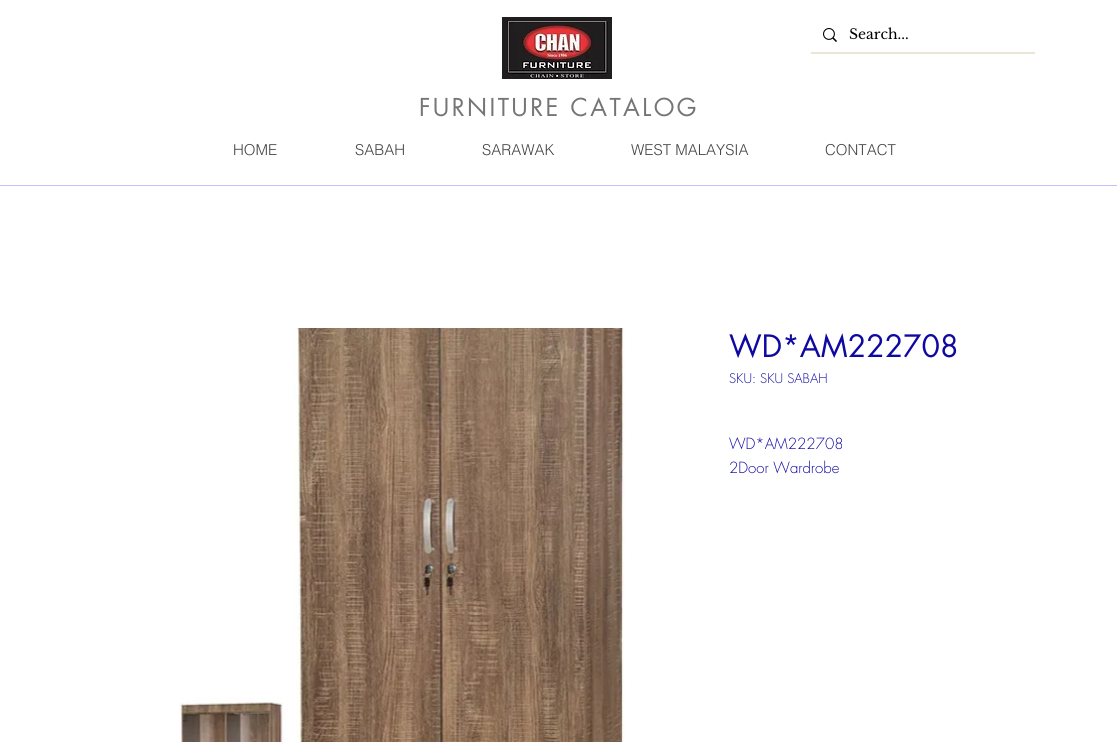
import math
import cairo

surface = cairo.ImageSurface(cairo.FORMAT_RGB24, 1117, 742)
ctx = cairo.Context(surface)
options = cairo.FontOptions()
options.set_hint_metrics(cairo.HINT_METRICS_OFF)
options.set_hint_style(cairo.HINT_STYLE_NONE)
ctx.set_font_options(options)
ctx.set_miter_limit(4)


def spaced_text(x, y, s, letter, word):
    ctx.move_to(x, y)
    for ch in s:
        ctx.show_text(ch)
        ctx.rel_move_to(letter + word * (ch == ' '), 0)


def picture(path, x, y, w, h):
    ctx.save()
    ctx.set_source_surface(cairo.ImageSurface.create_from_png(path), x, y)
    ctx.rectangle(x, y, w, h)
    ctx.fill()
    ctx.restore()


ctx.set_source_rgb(1, 1, 1)
ctx.paint()
picture("img1.png", 502, 17, 110, 62)
ctx.set_source_rgb(0.922, 0.898, 0.839)
ctx.rectangle(811, 52, 224, 2)
ctx.fill()
picture("img2.png", 823, 28, 14, 14)
ctx.select_font_face("Libre Baskerville")
ctx.set_font_size(14)
ctx.set_source_rgb(0, 0, 0)
ctx.move_to(849, 39)
ctx.show_text("Search...")
ctx.select_font_face("futura")
ctx.set_font_size(24)
ctx.set_source_rgb(0.459, 0.459, 0.459)
spaced_text(419, 116, "FURNITURE CATALOG", 2.4, 0)
ctx.select_font_face("helvetica Light")
ctx.set_font_size(15)
ctx.set_source_rgb(0.267, 0.267, 0.267)
ctx.move_to(233, 155)
ctx.show_text("HOME")
ctx.move_to(355, 155)
ctx.show_text("SABAH")
ctx.move_to(482, 155)
ctx.show_text("SARAWAK")
ctx.move_to(631, 155)
ctx.show_text("WEST MALAYSIA")
ctx.move_to(825, 155)
ctx.show_text("CONTACT")
ctx.set_source_rgb(0.765, 0.757, 0.984)
ctx.rectangle(0, 185, 1117, 1)
ctx.fill()
picture("img3.png", 179, 328, 446, 414)
ctx.select_font_face("futura")
ctx.set_font_size(30)
ctx.set_source_rgb(0.059, 0.035, 0.631)
ctx.move_to(729, 357)
ctx.show_text("WD*AM222708")
ctx.select_font_face("futura Light")
ctx.set_font_size(13)
ctx.move_to(729, 383)
ctx.show_text("SKU: SKU SABAH")
ctx.set_font_size(15)
ctx.move_to(729, 449)
ctx.show_text("WD*AM222708")
ctx.move_to(729, 473)
ctx.show_text("2Door Wardrobe")
surface.write_to_png("page.png")
